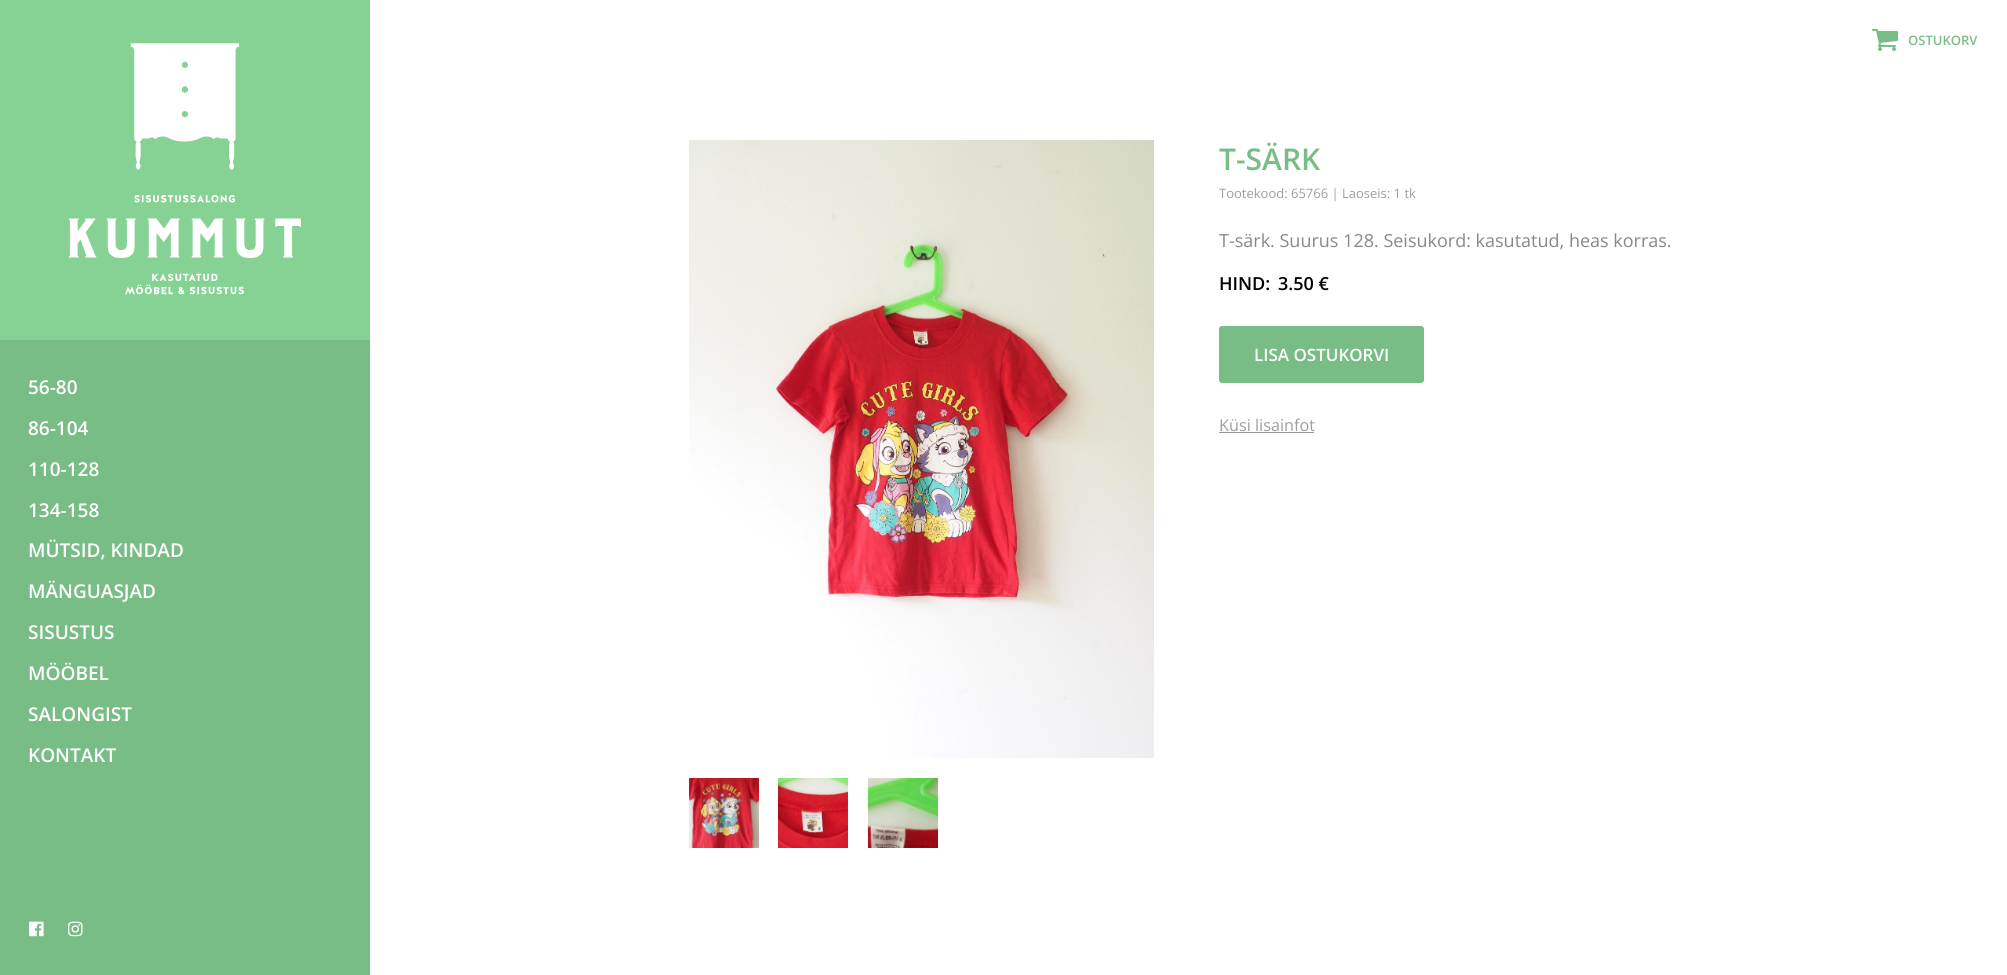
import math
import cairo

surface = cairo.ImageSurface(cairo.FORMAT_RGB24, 2007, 975)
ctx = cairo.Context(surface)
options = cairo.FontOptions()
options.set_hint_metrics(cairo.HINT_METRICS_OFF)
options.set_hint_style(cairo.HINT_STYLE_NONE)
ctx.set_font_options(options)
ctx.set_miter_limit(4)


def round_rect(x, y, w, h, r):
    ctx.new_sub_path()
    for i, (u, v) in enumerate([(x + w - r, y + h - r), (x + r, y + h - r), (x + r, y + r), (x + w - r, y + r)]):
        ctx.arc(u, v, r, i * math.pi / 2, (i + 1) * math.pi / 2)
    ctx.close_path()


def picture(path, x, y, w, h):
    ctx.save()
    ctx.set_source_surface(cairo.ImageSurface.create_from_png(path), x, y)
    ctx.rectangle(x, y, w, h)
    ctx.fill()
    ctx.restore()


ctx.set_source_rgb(1, 1, 1)
ctx.paint()
picture("img1.png", 1872, 29, 26, 22)
ctx.select_font_face("Open Sans SemiBold")
ctx.set_font_size(13)
ctx.set_source_rgb(0.475, 0.741, 0.525)
ctx.move_to(1908, 45)
ctx.show_text("OSTUKORV")
picture("img2.png", 689, 140, 465, 618)
picture("img3.png", 689, 778, 70, 70)
picture("img4.png", 778, 778, 70, 70)
picture("img5.png", 868, 778, 70, 70)
ctx.set_font_size(30)
ctx.move_to(1219, 170)
ctx.show_text("T-SÄRK")
ctx.select_font_face("Open Sans")
ctx.set_font_size(13)
ctx.set_source_rgb(0.62, 0.62, 0.62)
ctx.move_to(1219, 198)
ctx.show_text("Tootekood: 65766 | Laoseis: 1 tk")
ctx.set_font_size(18)
ctx.set_source_rgb(0.533, 0.533, 0.533)
ctx.move_to(1219, 247)
ctx.show_text("T-särk. Suurus 128. Seisukord: kasutatud, heas korras.")
ctx.select_font_face("Open Sans SemiBold")
ctx.set_source_rgb(0, 0, 0)
ctx.move_to(1219, 290)
ctx.show_text("HIND:")
ctx.move_to(1278, 290)
ctx.show_text("3.50 €")
ctx.set_source_rgb(0.475, 0.741, 0.525)
round_rect(1219, 326, 205, 57, 3)
ctx.fill()
ctx.set_font_size(17)
ctx.set_source_rgb(1, 1, 1)
ctx.move_to(1254, 361)
ctx.show_text("LISA OSTUKORVI")
ctx.select_font_face("Open Sans")
ctx.set_font_size(16.25)
ctx.set_source_rgb(0.62, 0.62, 0.62)
ctx.move_to(1219, 431)
ctx.show_text("Küsi lisainfot")
ctx.set_source_rgb(0.6, 0.6, 0.6)
ctx.rectangle(1219, 432, 95, 1)
ctx.fill()
ctx.set_source_rgb(0.475, 0.741, 0.525)
ctx.rectangle(0, 340, 370, 635)
ctx.fill()
ctx.set_source_rgb(0.525, 0.824, 0.584)
ctx.rectangle(0, 0, 370, 340)
ctx.fill()
picture("img6.png", 68, 43, 233, 252)
ctx.select_font_face("Open Sans SemiBold")
ctx.set_font_size(19)
ctx.set_source_rgb(1, 1, 1)
ctx.move_to(28, 394)
ctx.show_text("56-80")
ctx.move_to(28, 435)
ctx.show_text("86-104")
ctx.move_to(28, 476)
ctx.show_text("110-128")
ctx.move_to(28, 517)
ctx.show_text("134-158")
ctx.move_to(28, 557)
ctx.show_text("MÜTSID, KINDAD")
ctx.move_to(28, 598)
ctx.show_text("MÄNGUASJAD")
ctx.move_to(28, 639)
ctx.show_text("SISUSTUS")
ctx.move_to(28, 680)
ctx.show_text("MÖÖBEL")
ctx.move_to(28, 721)
ctx.show_text("SALONGIST")
ctx.move_to(28, 762)
ctx.show_text("KONTAKT")
picture("img7.png", 29, 921, 15, 16)
picture("img8.png", 68, 921, 15, 16)
surface.write_to_png("page.png")
